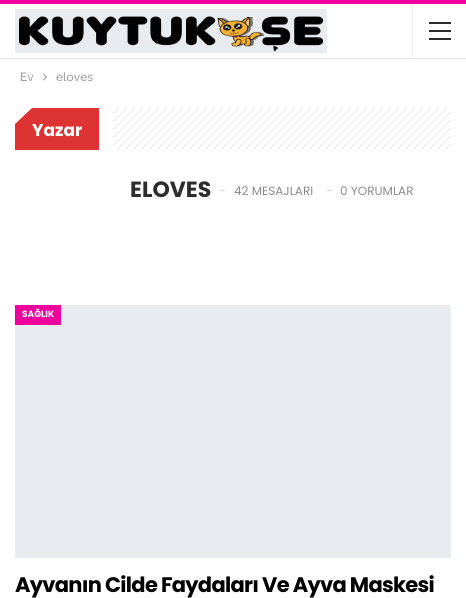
import math
import cairo

surface = cairo.ImageSurface(cairo.FORMAT_RGB24, 466, 598)
ctx = cairo.Context(surface)
options = cairo.FontOptions()
options.set_hint_metrics(cairo.HINT_METRICS_OFF)
options.set_hint_style(cairo.HINT_STYLE_NONE)
ctx.set_font_options(options)
ctx.set_miter_limit(4)


def spaced_text(x, y, s, letter, word):
    ctx.move_to(x, y)
    for ch in s:
        ctx.show_text(ch)
        ctx.rel_move_to(letter + word * (ch == ' '), 0)


def picture(path, x, y, w, h):
    ctx.save()
    ctx.set_source_surface(cairo.ImageSurface.create_from_png(path), x, y)
    ctx.rectangle(x, y, w, h)
    ctx.fill()
    ctx.restore()


ctx.set_source_rgb(0.933, 0, 0.616)
ctx.paint()
ctx.set_source_rgb(1, 1, 1)
ctx.rectangle(0, 4, 466, 594)
ctx.fill()
ctx.set_source_rgb(0.898, 0.898, 0.898)
ctx.rectangle(0, 58, 466, 1)
ctx.fill()
ctx.set_source_rgb(0.914, 0.922, 0.933)
ctx.rectangle(15, 9, 312, 44)
ctx.fill()
picture("img1.png", 19, 16, 305, 36)
ctx.set_source_rgb(0.929, 0.929, 0.929)
ctx.rectangle(412, 4, 1, 54)
ctx.fill()
ctx.set_source_rgb(0.173, 0.173, 0.173)
ctx.rectangle(429, 30, 22, 2)
ctx.fill()
ctx.rectangle(429, 22, 22, 2)
ctx.fill()
ctx.rectangle(429, 38, 22, 2)
ctx.fill()
ctx.select_font_face("Raleway Medium")
ctx.set_font_size(12)
ctx.set_source_rgb(0.62, 0.62, 0.62)
ctx.move_to(20, 81)
ctx.show_text("Ev")
picture("img2.png", 43, 73, 4, 8)
ctx.move_to(56, 81)
ctx.show_text("eloves")
ctx.set_source_rgb(0.867, 0.2, 0.2)
ctx.rectangle(15, 108, 84, 42)
ctx.fill()
ctx.set_source_rgb(1, 1, 1)
ctx.new_path()
ctx.move_to(15, 108)
ctx.line_to(32, 108)
ctx.line_to(15, 124)
ctx.close_path()
ctx.fill()
ctx.select_font_face("Poppins", cairo.FONT_SLANT_NORMAL, cairo.FONT_WEIGHT_BOLD)
ctx.set_font_size(17)
ctx.move_to(32, 136)
ctx.show_text("Yazar")
picture("img3.png", 113, 108, 338, 42)
ctx.set_font_size(22)
ctx.set_source_rgb(0.176, 0.176, 0.176)
ctx.move_to(130, 197)
ctx.show_text("ELOVES")
ctx.select_font_face("Poppins")
ctx.set_font_size(12)
ctx.set_source_rgb(0.816, 0.816, 0.816)
ctx.move_to(219, 195)
ctx.show_text("-")
ctx.set_source_rgb(0.541, 0.541, 0.541)
ctx.move_to(234, 195)
ctx.show_text("42 MESAJLARI")
ctx.set_source_rgb(0.816, 0.816, 0.816)
ctx.move_to(326, 195)
ctx.show_text("-")
ctx.set_source_rgb(0.541, 0.541, 0.541)
ctx.move_to(340, 195)
ctx.show_text("0 YORUMLAR")
ctx.set_source_rgb(0.914, 0.922, 0.933)
ctx.rectangle(15, 305, 436, 253)
ctx.fill()
ctx.set_source_rgb(0.933, 0, 0.616)
ctx.rectangle(15, 305, 46, 20)
ctx.fill()
ctx.select_font_face("Poppins", cairo.FONT_SLANT_NORMAL, cairo.FONT_WEIGHT_BOLD)
ctx.set_font_size(9)
ctx.set_source_rgb(1, 1, 1)
ctx.move_to(22, 317)
ctx.show_text("SAĞLIK")
ctx.set_font_size(21)
ctx.set_source_rgb(0, 0, 0)
spaced_text(15, 592, "Ayvanın Cilde Faydaları Ve Ayva Maskesi", -0.7, 0)
surface.write_to_png("page.png")
